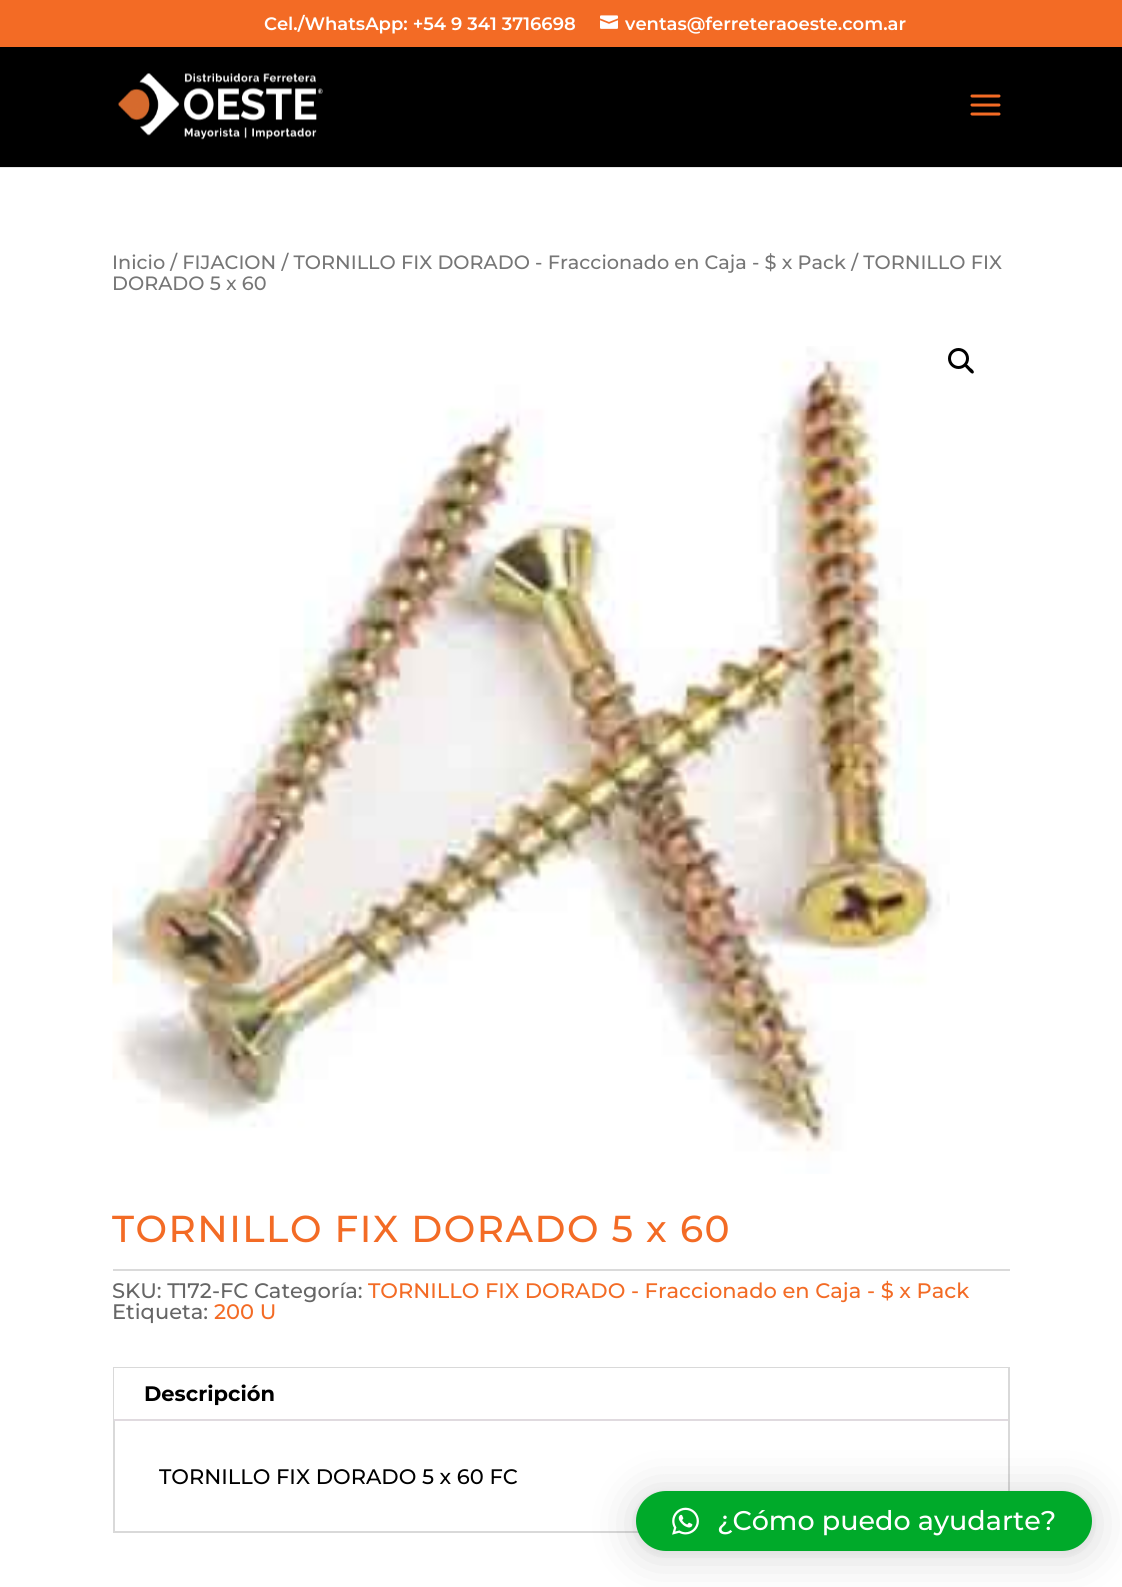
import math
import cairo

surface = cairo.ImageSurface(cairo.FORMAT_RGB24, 1122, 1587)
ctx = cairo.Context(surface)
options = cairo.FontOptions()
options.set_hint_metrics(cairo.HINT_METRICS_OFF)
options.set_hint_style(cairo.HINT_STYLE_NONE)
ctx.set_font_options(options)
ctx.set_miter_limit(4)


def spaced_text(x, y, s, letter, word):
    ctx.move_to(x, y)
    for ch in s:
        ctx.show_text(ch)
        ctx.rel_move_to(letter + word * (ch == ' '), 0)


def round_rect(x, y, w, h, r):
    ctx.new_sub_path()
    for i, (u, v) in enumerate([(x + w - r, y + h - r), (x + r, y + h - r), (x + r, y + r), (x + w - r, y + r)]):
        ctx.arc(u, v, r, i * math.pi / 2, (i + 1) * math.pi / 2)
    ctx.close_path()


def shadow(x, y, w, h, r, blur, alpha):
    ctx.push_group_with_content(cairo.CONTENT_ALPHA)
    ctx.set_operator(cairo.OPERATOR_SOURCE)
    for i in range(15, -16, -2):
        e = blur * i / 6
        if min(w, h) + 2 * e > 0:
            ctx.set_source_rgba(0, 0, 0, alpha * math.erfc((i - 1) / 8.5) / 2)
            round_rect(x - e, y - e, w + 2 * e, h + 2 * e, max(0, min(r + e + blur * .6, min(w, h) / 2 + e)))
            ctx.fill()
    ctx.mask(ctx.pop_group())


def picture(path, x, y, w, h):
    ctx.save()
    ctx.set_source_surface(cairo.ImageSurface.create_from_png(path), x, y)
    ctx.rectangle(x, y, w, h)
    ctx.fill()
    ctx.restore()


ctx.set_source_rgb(1, 1, 1)
ctx.paint()
ctx.set_source_rgb(0.953, 0.42, 0.145)
ctx.rectangle(0, 0, 1122, 47)
ctx.fill()
ctx.select_font_face("Montserrat SemiBold")
ctx.set_font_size(18)
ctx.set_source_rgb(1, 1, 1)
ctx.move_to(264, 30)
ctx.show_text("Cel./WhatsApp: +54 9 341 3716698")
picture("img1.png", 600, 15, 18, 14)
ctx.move_to(625, 30)
ctx.show_text("ventas@ferreteraoeste.com.ar")
ctx.set_source_rgb(0.902, 0.902, 0.902)
ctx.rectangle(0, 167, 1122, 1)
ctx.fill()
ctx.set_source_rgb(0, 0, 0)
ctx.rectangle(0, 47, 1122, 120)
ctx.fill()
picture("img2.png", 118, 73, 205, 67)
picture("img3.png", 970, 94, 31, 22)
ctx.select_font_face("Montserrat Medium")
ctx.set_font_size(19.3)
ctx.set_source_rgb(0.463, 0.463, 0.463)
ctx.move_to(112, 269)
ctx.show_text("Inicio / FIJACION / TORNILLO FIX DORADO - Fraccionado en Caja - $ x Pack / TORNILLO FIX")
ctx.move_to(112, 290)
ctx.show_text("DORADO 5 x 60")
picture("img4.png", 112, 346, 838, 828)
ctx.arc(958.5, 358.5, 9, 0, 2 * math.pi)
ctx.set_source_rgb(0, 0, 0)
ctx.set_line_width(3)
ctx.stroke()
ctx.new_path()
ctx.move_to(965, 364.5)
ctx.curve_to(966.5, 363, 969.5, 367, 970.5, 368)
ctx.curve_to(971.5, 368.5, 975, 371.5, 973.5, 373)
ctx.curve_to(972, 375, 969, 371, 968, 370)
ctx.curve_to(967.5, 369, 963.5, 366.5, 965, 364.5)
ctx.close_path()
ctx.fill()
ctx.set_font_size(37.5)
ctx.set_source_rgb(0.953, 0.42, 0.145)
spaced_text(112, 1242, "TORNILLO FIX DORADO 5 x 60", 1.5, 0)
ctx.set_source_rgb(0.855, 0.855, 0.855)
ctx.rectangle(113, 1269, 897, 2)
ctx.fill()
ctx.set_font_size(21)
ctx.set_source_rgb(0.4, 0.4, 0.4)
ctx.move_to(112, 1298)
ctx.show_text("SKU: T172-FC Categoría:")
ctx.set_source_rgb(0.953, 0.42, 0.145)
ctx.move_to(368, 1298)
ctx.show_text("TORNILLO FIX DORADO - Fraccionado en Caja - $ x Pack")
ctx.set_source_rgb(0.4, 0.4, 0.4)
ctx.move_to(112, 1319)
ctx.show_text("Etiqueta:")
ctx.set_source_rgb(0.953, 0.42, 0.145)
ctx.move_to(214, 1319)
ctx.show_text("200 U")
ctx.rectangle(114, 1368, 895, 164)
ctx.set_source_rgb(0.851, 0.851, 0.851)
ctx.set_line_width(2)
ctx.stroke()
ctx.set_source_rgb(1, 1, 1)
ctx.rectangle(114, 1368, 894, 51)
ctx.fill()
ctx.set_source_rgb(0.878, 0.855, 0.875)
ctx.rectangle(114, 1419, 894, 2)
ctx.fill()
ctx.select_font_face("Montserrat", cairo.FONT_SLANT_NORMAL, cairo.FONT_WEIGHT_BOLD)
ctx.set_source_rgb(0, 0, 0)
ctx.move_to(144, 1401)
ctx.show_text("Descripción")
ctx.select_font_face("Montserrat Medium")
ctx.move_to(159, 1484)
ctx.show_text("TORNILLO FIX DORADO 5 x 60 FC")
ctx.set_source_rgb(0, 0, 0)
shadow(636, 1494, 456, 60, 30, 24, 0.16)
shadow(636, 1493, 456, 60, 30, 4.5, 0.06)
ctx.set_source_rgb(0, 0.667, 0.165)
round_rect(636, 1491, 456, 60, 30)
ctx.fill()
picture("img5.png", 672, 1507, 27, 28)
ctx.set_font_size(27)
ctx.set_source_rgb(1, 1, 1)
ctx.move_to(717, 1530)
ctx.show_text("¿Cómo puedo ayudarte?")
surface.write_to_png("page.png")
